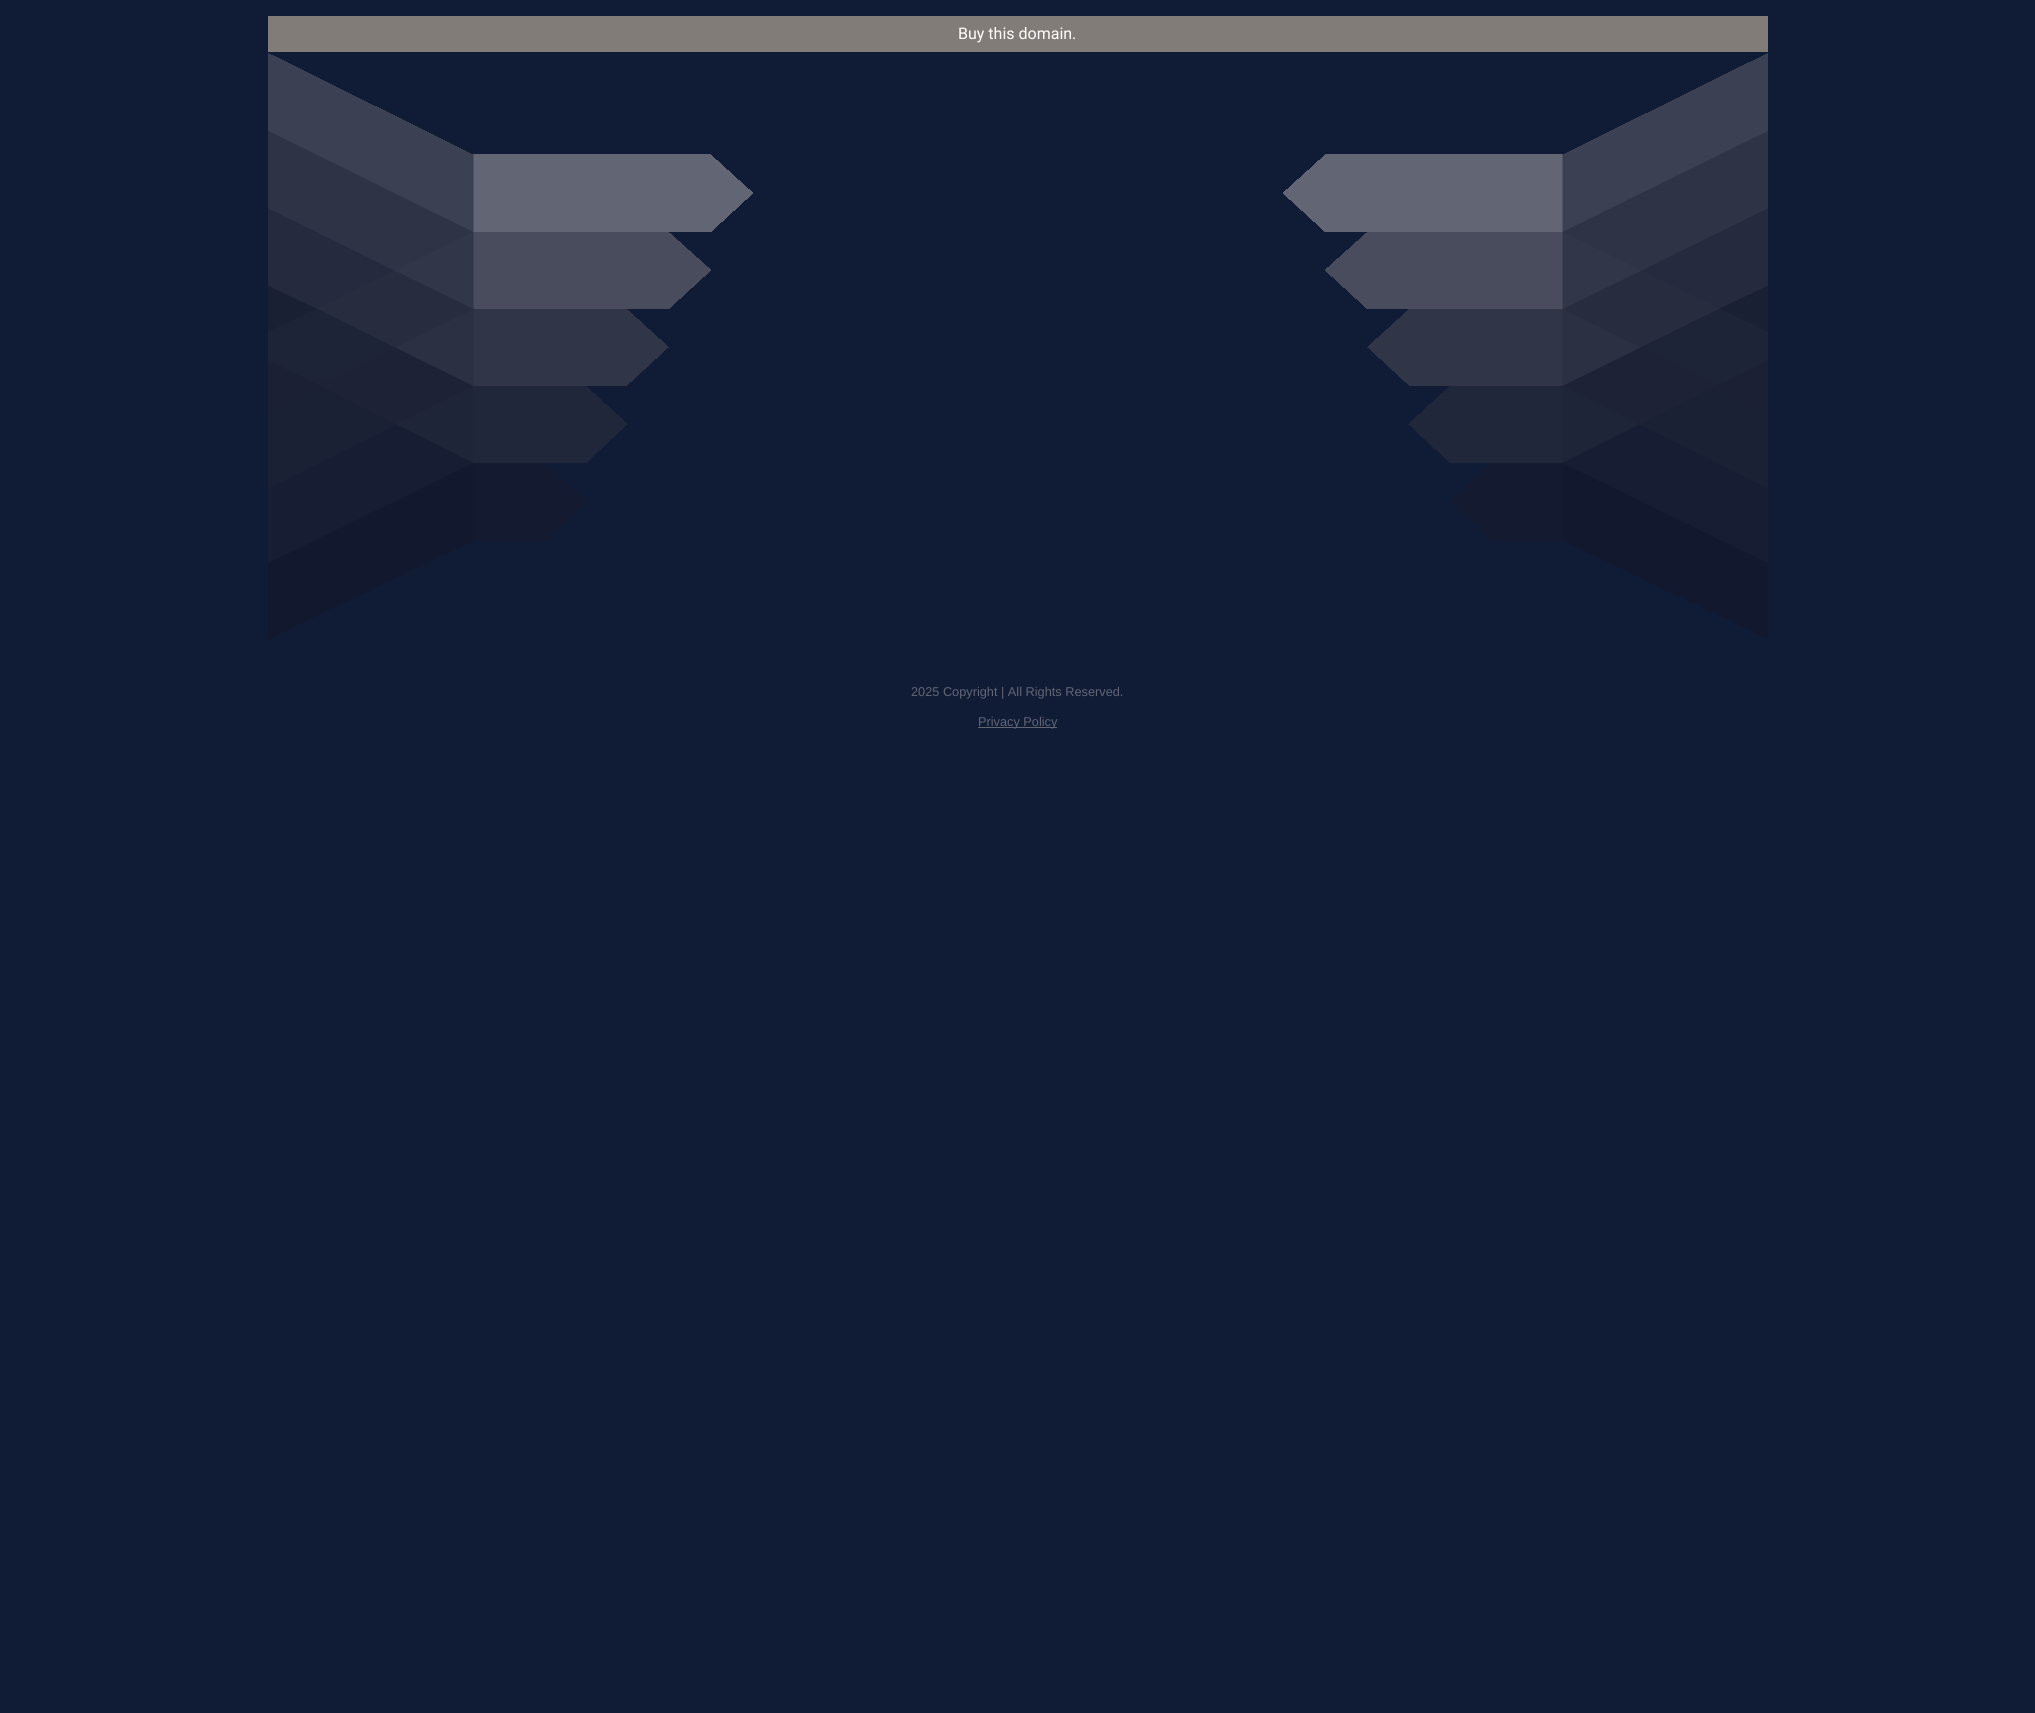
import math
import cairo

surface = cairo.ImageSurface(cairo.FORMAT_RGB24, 2035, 1713)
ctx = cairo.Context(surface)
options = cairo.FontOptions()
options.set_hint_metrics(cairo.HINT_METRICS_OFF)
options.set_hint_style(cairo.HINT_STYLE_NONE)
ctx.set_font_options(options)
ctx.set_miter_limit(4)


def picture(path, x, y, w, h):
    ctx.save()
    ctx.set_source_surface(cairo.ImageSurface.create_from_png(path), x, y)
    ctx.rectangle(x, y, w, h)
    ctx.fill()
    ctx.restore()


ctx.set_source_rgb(0.063, 0.11, 0.212)
ctx.paint()
ctx.set_source_rgb(0.506, 0.486, 0.471)
ctx.rectangle(268, 16, 1500, 36)
ctx.fill()
ctx.select_font_face("Roboto")
ctx.set_font_size(16)
ctx.set_source_rgb(1, 1, 1)
ctx.move_to(958, 39)
ctx.show_text("Buy this domain.")
picture("img1.png", 268, 53, 1500, 586)
ctx.select_font_face("Liberation Sans")
ctx.set_font_size(12.75)
ctx.set_source_rgb(0.384, 0.396, 0.455)
ctx.move_to(911, 696)
ctx.show_text("2025 Copyright | All Rights Reserved.")
ctx.rectangle(978, 727, 79, 1)
ctx.fill()
ctx.move_to(978, 726)
ctx.show_text("Privacy Policy")
surface.write_to_png("page.png")
